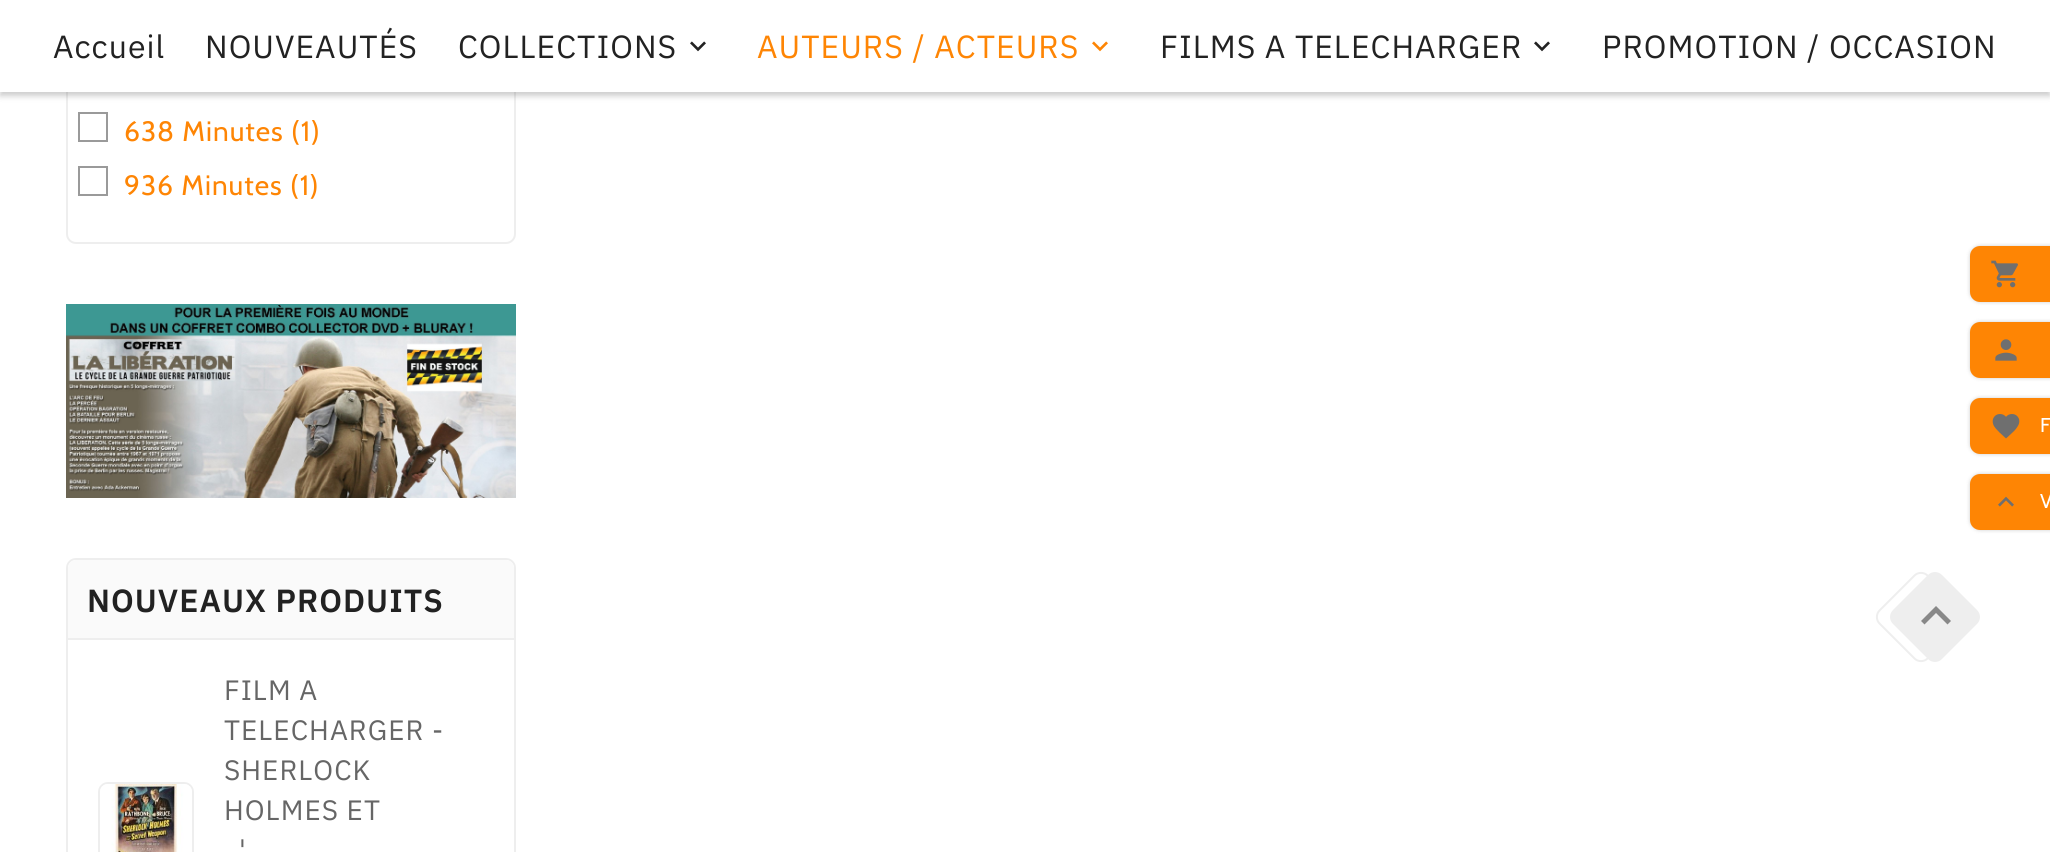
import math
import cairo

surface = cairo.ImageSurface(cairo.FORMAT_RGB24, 2050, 852)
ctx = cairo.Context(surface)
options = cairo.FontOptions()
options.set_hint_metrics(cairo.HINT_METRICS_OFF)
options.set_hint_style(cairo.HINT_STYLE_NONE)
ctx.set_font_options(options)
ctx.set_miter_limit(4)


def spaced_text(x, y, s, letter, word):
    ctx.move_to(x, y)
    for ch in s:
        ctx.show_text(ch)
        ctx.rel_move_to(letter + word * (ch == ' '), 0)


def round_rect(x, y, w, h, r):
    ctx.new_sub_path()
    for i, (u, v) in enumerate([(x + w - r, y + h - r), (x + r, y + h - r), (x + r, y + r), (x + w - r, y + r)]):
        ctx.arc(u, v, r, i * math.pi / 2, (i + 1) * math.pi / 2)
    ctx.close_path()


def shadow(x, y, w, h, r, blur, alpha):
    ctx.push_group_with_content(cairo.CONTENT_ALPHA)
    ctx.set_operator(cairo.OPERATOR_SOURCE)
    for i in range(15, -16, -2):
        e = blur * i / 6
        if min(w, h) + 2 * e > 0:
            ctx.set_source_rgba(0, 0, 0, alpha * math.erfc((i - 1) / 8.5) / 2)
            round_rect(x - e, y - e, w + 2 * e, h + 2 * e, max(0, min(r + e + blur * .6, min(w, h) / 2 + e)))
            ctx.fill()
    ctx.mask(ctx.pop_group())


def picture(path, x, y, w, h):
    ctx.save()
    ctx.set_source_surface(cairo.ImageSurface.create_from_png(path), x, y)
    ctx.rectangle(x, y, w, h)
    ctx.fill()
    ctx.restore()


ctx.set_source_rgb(1, 1, 1)
ctx.paint()
round_rect(67, -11, 448, 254, 9)
ctx.set_source_rgb(0.933, 0.933, 0.933)
ctx.stroke()
ctx.set_source_rgb(0, 0, 0)
shadow(0, 4, 2050, 92, 0, 3, 0.2)
ctx.set_source_rgb(1, 1, 1)
ctx.rectangle(0, 0, 2050, 92)
ctx.fill()
ctx.select_font_face("IBM Plex Sans")
ctx.set_font_size(32)
ctx.set_source_rgb(0.133, 0.133, 0.133)
spaced_text(53, 58, "Accueil", 1, 0)
spaced_text(205, 58, "NOUVEAUTÉS", 1, 0)
spaced_text(458, 58, "COLLECTIONS", 1, 0)
picture("img1.png", 690, 41, 16, 11)
ctx.set_source_rgb(0.996, 0.522, 0.016)
spaced_text(757, 58, "AUTEURS / ACTEURS", 1, 0)
picture("img2.png", 1092, 41, 16, 11)
ctx.set_source_rgb(0.133, 0.133, 0.133)
spaced_text(1160, 58, "FILMS A TELECHARGER", 1, 0)
picture("img1.png", 1534, 41, 16, 11)
spaced_text(1602, 58, "PROMOTION / OCCASION", 1, 0)
ctx.set_source_rgb(0, 0, 0)
shadow(1970, 246, 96, 56, 10, 2, 0.2)
ctx.set_source_rgb(0.996, 0.522, 0.016)
ctx.new_path()
ctx.move_to(1980, 246)
ctx.line_to(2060, 246)
ctx.line_to(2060, 302)
ctx.line_to(1980, 302)
ctx.curve_to(1974.5, 302, 1970, 297.5, 1970, 292)
ctx.line_to(1970, 256)
ctx.curve_to(1970, 250.5, 1974.5, 246, 1980, 246)
ctx.close_path()
ctx.fill()
picture("img3.png", 1991, 260, 27, 28)
ctx.set_source_rgb(0, 0, 0)
shadow(1970, 322, 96, 56, 10, 2, 0.2)
ctx.set_source_rgb(0.996, 0.522, 0.016)
ctx.new_path()
ctx.move_to(1980, 322)
ctx.line_to(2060, 322)
ctx.line_to(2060, 378)
ctx.line_to(1980, 378)
ctx.curve_to(1974.5, 378, 1970, 373.5, 1970, 368)
ctx.line_to(1970, 332)
ctx.curve_to(1970, 326.5, 1974.5, 322, 1980, 322)
ctx.close_path()
ctx.fill()
picture("img4.png", 1995, 339, 22, 22)
ctx.set_source_rgb(0, 0, 0)
shadow(1970, 398, 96, 56, 10, 2, 0.2)
ctx.set_source_rgb(0.996, 0.522, 0.016)
ctx.new_path()
ctx.move_to(1980, 398)
ctx.line_to(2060, 398)
ctx.line_to(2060, 454)
ctx.line_to(1980, 454)
ctx.curve_to(1974.5, 454, 1970, 449.5, 1970, 444)
ctx.line_to(1970, 408)
ctx.curve_to(1970, 402.5, 1974.5, 398, 1980, 398)
ctx.close_path()
ctx.fill()
picture("img5.png", 1992, 414, 28, 25)
ctx.select_font_face("Cabin")
ctx.set_font_size(20)
ctx.set_source_rgb(1, 1, 1)
spaced_text(2040, 432, "F", 1, 0)
ctx.set_source_rgb(0, 0, 0)
shadow(1970, 474, 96, 56, 10, 2, 0.2)
ctx.set_source_rgb(0.996, 0.522, 0.016)
ctx.new_path()
ctx.move_to(1980, 474)
ctx.line_to(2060, 474)
ctx.line_to(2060, 530)
ctx.line_to(1980, 530)
ctx.curve_to(1974.5, 530, 1970, 525.5, 1970, 520)
ctx.line_to(1970, 484)
ctx.curve_to(1970, 478.5, 1974.5, 474, 1980, 474)
ctx.close_path()
ctx.fill()
picture("img6.png", 1998, 496, 16, 11)
ctx.set_source_rgb(1, 1, 1)
spaced_text(2040, 508, "V", 1, 0)
ctx.rectangle(79, 113, 28, 28)
ctx.set_source_rgb(0.604, 0.604, 0.604)
ctx.stroke()
ctx.set_font_size(28)
ctx.set_source_rgb(0.996, 0.522, 0.016)
spaced_text(124, 141, "638 Minutes (1)", 1, 0)
ctx.rectangle(79, 167, 28, 28)
ctx.set_source_rgb(0.604, 0.604, 0.604)
ctx.stroke()
ctx.set_source_rgb(0.996, 0.522, 0.016)
spaced_text(124, 195, "936 Minutes (1)", 1, 0)
picture("img7.png", 66, 304, 450, 194)
round_rect(67, 559, 448, 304, 9)
ctx.set_source_rgb(0.933, 0.933, 0.933)
ctx.stroke()
ctx.set_source_rgb(0.98, 0.98, 0.98)
ctx.new_path()
ctx.move_to(76, 560)
ctx.line_to(506, 560)
ctx.curve_to(510.5, 560, 514, 563.5, 514, 568)
ctx.line_to(514, 640)
ctx.line_to(68, 640)
ctx.line_to(68, 568)
ctx.curve_to(68, 563.5, 71.5, 560, 76, 560)
ctx.close_path()
ctx.fill()
ctx.set_source_rgb(0.933, 0.933, 0.933)
ctx.rectangle(68, 638, 446, 2)
ctx.fill()
ctx.select_font_face("IBM Plex Sans SemiBold")
ctx.set_font_size(32)
ctx.set_source_rgb(0.133, 0.133, 0.133)
spaced_text(87, 612, "NOUVEAUX PRODUITS", 1, 0)
round_rect(99, 783, 94, 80, 9)
ctx.set_source_rgb(0.933, 0.933, 0.933)
ctx.stroke()
picture("img8.png", 100, 784, 92, 68)
ctx.select_font_face("IBM Plex Sans")
ctx.set_font_size(28)
ctx.set_source_rgb(0.4, 0.4, 0.4)
spaced_text(224, 700, "FILM A", 1, 0)
spaced_text(224, 740, "TELECHARGER -", 1, 0)
spaced_text(224, 780, "SHERLOCK", 1, 0)
spaced_text(224, 820, "HOLMES ET", 1, 0)
spaced_text(239, 860, "'", 1, 0)
ctx.new_path()
ctx.move_to(1927.5, 575.5)
ctx.line_to(1962.5, 610.5)
ctx.curve_to(1966, 614, 1966, 620, 1962.5, 623.5)
ctx.line_to(1927.5, 658.5)
ctx.curve_to(1924, 662, 1918, 662, 1914.5, 658.5)
ctx.line_to(1879.5, 623.5)
ctx.curve_to(1876, 620, 1876, 614, 1879.5, 610.5)
ctx.line_to(1914.5, 575.5)
ctx.curve_to(1918, 572, 1924, 572, 1927.5, 575.5)
ctx.close_path()
ctx.set_source_rgb(0.933, 0.933, 0.933)
ctx.stroke()
ctx.new_path()
ctx.move_to(1942, 575)
ctx.line_to(1977, 610)
ctx.curve_to(1981, 614, 1981, 620, 1977, 624)
ctx.line_to(1942, 659)
ctx.curve_to(1938, 663, 1932, 663, 1928, 659)
ctx.line_to(1893, 624)
ctx.curve_to(1889, 620, 1889, 614, 1893, 610)
ctx.line_to(1928, 575)
ctx.curve_to(1932, 571, 1938, 571, 1942, 575)
ctx.close_path()
ctx.fill()
ctx.set_source_rgb(0.533, 0.533, 0.533)
ctx.new_path()
ctx.move_to(1924.5, 624.5)
ctx.line_to(1921, 621)
ctx.line_to(1936, 606)
ctx.line_to(1951, 621)
ctx.line_to(1947.5, 624.5)
ctx.line_to(1936, 613)
ctx.close_path()
ctx.fill()
surface.write_to_png("page.png")
